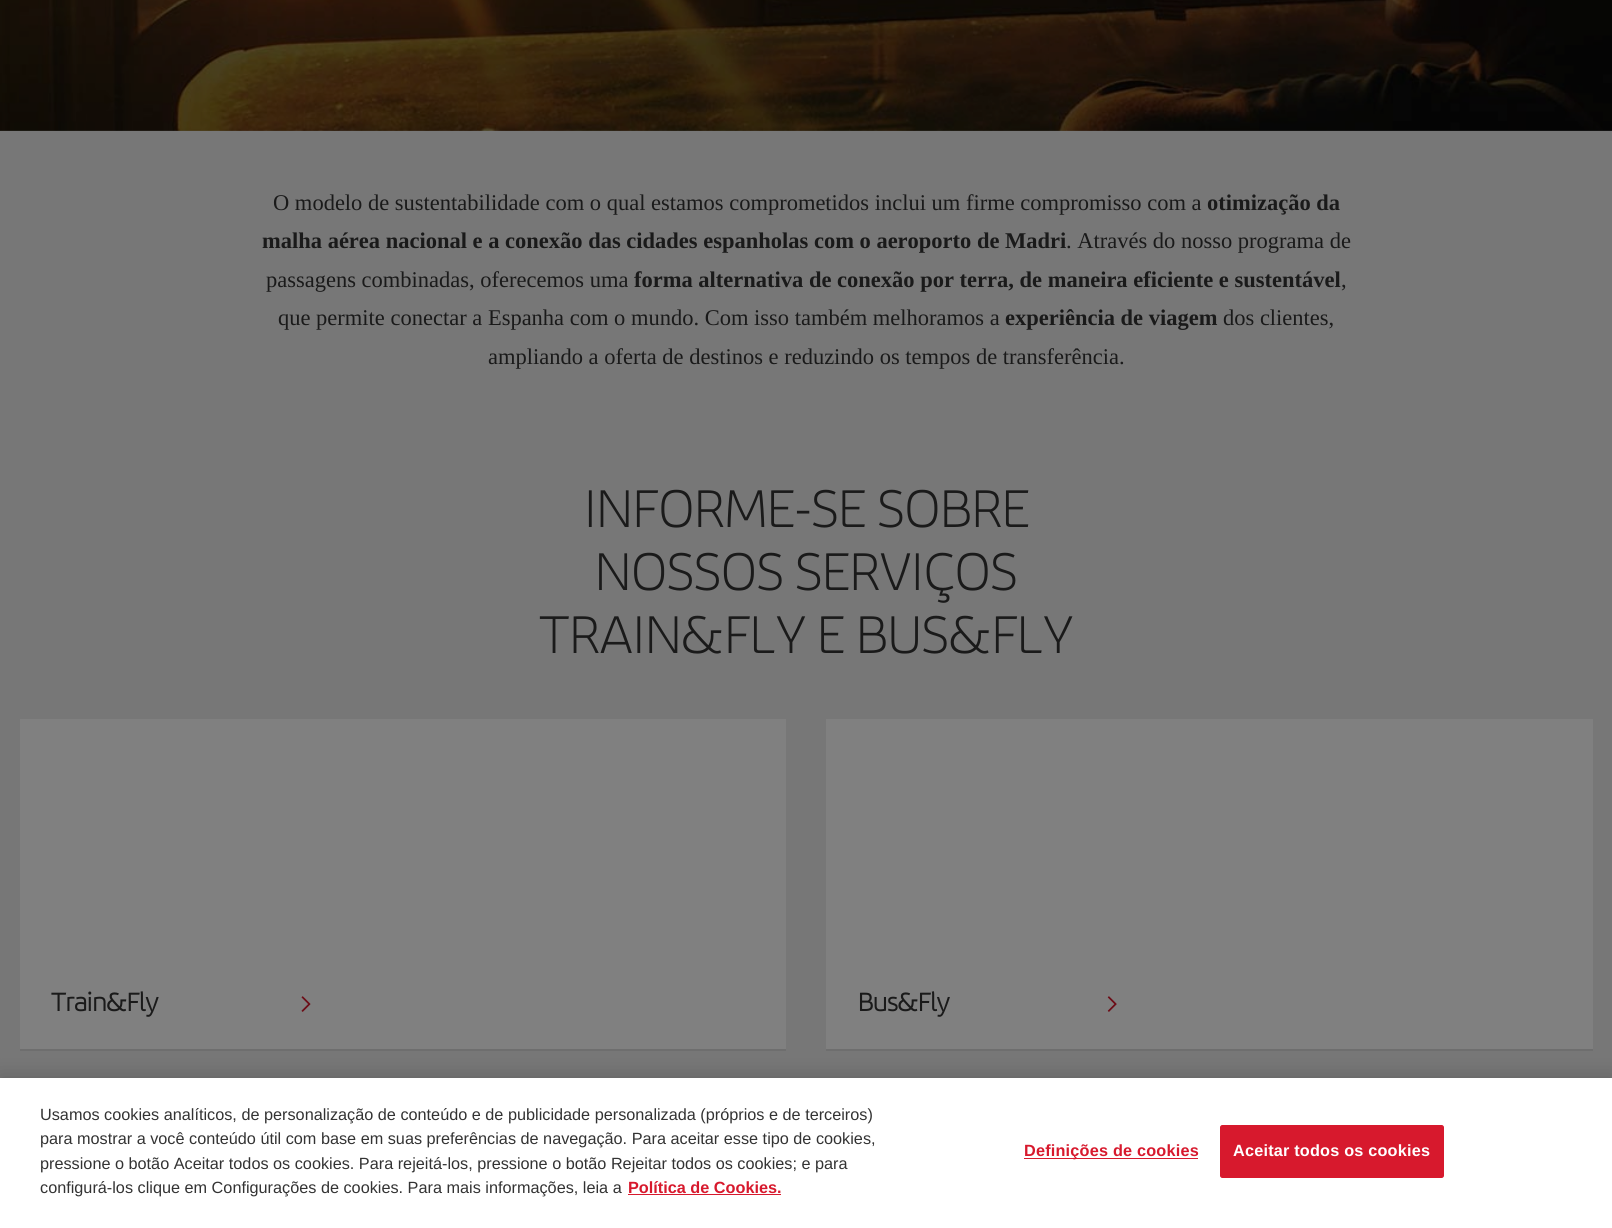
import math
import cairo

surface = cairo.ImageSurface(cairo.FORMAT_RGB24, 1612, 1228)
ctx = cairo.Context(surface)
options = cairo.FontOptions()
options.set_hint_metrics(cairo.HINT_METRICS_OFF)
options.set_hint_style(cairo.HINT_STYLE_NONE)
ctx.set_font_options(options)
ctx.set_miter_limit(4)


def spaced_text(x, y, s, letter, word):
    ctx.move_to(x, y)
    for ch in s:
        ctx.show_text(ch)
        ctx.rel_move_to(letter + word * (ch == ' '), 0)


def round_rect(x, y, w, h, r):
    ctx.new_sub_path()
    for i, (u, v) in enumerate([(x + w - r, y + h - r), (x + r, y + h - r), (x + r, y + r), (x + w - r, y + r)]):
        ctx.arc(u, v, r, i * math.pi / 2, (i + 1) * math.pi / 2)
    ctx.close_path()


def shadow(x, y, w, h, r, blur, alpha):
    ctx.push_group_with_content(cairo.CONTENT_ALPHA)
    ctx.set_operator(cairo.OPERATOR_SOURCE)
    for i in range(15, -16, -2):
        e = blur * i / 6
        if min(w, h) + 2 * e > 0:
            ctx.set_source_rgba(0, 0, 0, alpha * math.erfc((i - 1) / 8.5) / 2)
            round_rect(x - e, y - e, w + 2 * e, h + 2 * e, max(0, min(r + e + blur * .6, min(w, h) / 2 + e)))
            ctx.fill()
    ctx.mask(ctx.pop_group())


def picture(path, x, y, w, h):
    ctx.save()
    ctx.set_source_surface(cairo.ImageSurface.create_from_png(path), x, y)
    ctx.rectangle(x, y, w, h)
    ctx.fill()
    ctx.restore()


ctx.set_source_rgb(0.467, 0.467, 0.467)
ctx.paint()
picture("img1.png", 0, 0, 1612, 131)
ctx.select_font_face("Liberation Serif")
ctx.set_font_size(22.5)
ctx.set_source_rgb(0.102, 0.102, 0.102)
ctx.move_to(273, 210)
ctx.show_text("O modelo de sustentabilidade com o qual estamos comprometidos inclui um firme compromisso com a")
ctx.select_font_face("Liberation Serif", cairo.FONT_SLANT_NORMAL, cairo.FONT_WEIGHT_BOLD)
ctx.move_to(1207, 210)
ctx.show_text("otimização da")
ctx.move_to(262, 248)
ctx.show_text("malha aérea nacional e a conexão das cidades espanholas com o aeroporto de Madri")
ctx.select_font_face("Liberation Serif")
ctx.move_to(1066, 248)
ctx.show_text(". Através do nosso programa de")
ctx.move_to(266, 287)
ctx.show_text("passagens combinadas, oferecemos uma")
ctx.select_font_face("Liberation Serif", cairo.FONT_SLANT_NORMAL, cairo.FONT_WEIGHT_BOLD)
ctx.move_to(634, 287)
ctx.show_text("forma alternativa de conexão por terra, de maneira eficiente e sustentável")
ctx.select_font_face("Liberation Serif")
ctx.move_to(1341, 287)
ctx.show_text(",")
ctx.move_to(278, 325)
ctx.show_text("que permite conectar a Espanha com o mundo. Com isso também melhoramos a")
ctx.select_font_face("Liberation Serif", cairo.FONT_SLANT_NORMAL, cairo.FONT_WEIGHT_BOLD)
ctx.move_to(1005, 325)
ctx.show_text("experiência de viagem")
ctx.select_font_face("Liberation Serif")
ctx.move_to(1223, 325)
ctx.show_text("dos clientes,")
ctx.move_to(488, 364)
ctx.show_text("ampliando a oferta de destinos e reduzindo os tempos de transferência.")
ctx.select_font_face("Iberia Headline")
ctx.set_font_size(57.5)
ctx.move_to(584, 527)
ctx.show_text("INFORME-SE SOBRE")
ctx.move_to(595, 590)
ctx.show_text("NOSSOS SERVIÇOS")
ctx.move_to(539, 653)
ctx.show_text("TRAIN&FLY E BUS&FLY")
ctx.set_source_rgb(0.431, 0.431, 0.431)
ctx.rectangle(20, 1049, 766, 2)
ctx.fill()
ctx.set_source_rgb(0.502, 0.502, 0.502)
ctx.rectangle(20, 719, 766, 330)
ctx.fill()
ctx.select_font_face("Iberia Headline", cairo.FONT_SLANT_NORMAL, cairo.FONT_WEIGHT_BOLD)
ctx.set_font_size(27.5)
ctx.set_source_rgb(0.102, 0.102, 0.102)
ctx.move_to(51, 1011)
ctx.show_text("Train&Fly")
picture("img2.png", 301, 996, 10, 16)
ctx.set_source_rgb(0.431, 0.431, 0.431)
ctx.new_path()
ctx.move_to(826, 721)
ctx.line_to(826, 1051)
ctx.line_to(1593, 1051)
ctx.line_to(1593, 721)
ctx.line_to(1592, 721)
ctx.line_to(1592, 1049)
ctx.line_to(826, 1049)
ctx.close_path()
ctx.fill()
ctx.set_source_rgb(0.502, 0.502, 0.502)
ctx.rectangle(826, 719, 767, 330)
ctx.fill()
ctx.set_source_rgb(0.102, 0.102, 0.102)
ctx.move_to(858, 1011)
ctx.show_text("Bus&Fly")
picture("img3.png", 1107, 996, 10, 16)
ctx.set_source_rgb(0, 0, 0)
shadow(0, 1078, 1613, 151, 0, 11, 0.2)
ctx.set_source_rgb(1, 1, 1)
ctx.rectangle(0, 1078, 1612, 150)
ctx.fill()
ctx.select_font_face("Liberation Sans")
ctx.set_font_size(16.25)
ctx.set_source_rgb(0.2, 0.2, 0.2)
ctx.move_to(40, 1120)
ctx.show_text("Usamos cookies analíticos, de personalização de conteúdo e de publicidade personalizada (próprios e de terceiros)")
ctx.move_to(40, 1144)
ctx.show_text("para mostrar a você conteúdo útil com base em suas preferências de navegação. Para aceitar esse tipo de cookies,")
ctx.move_to(40, 1169)
ctx.show_text("pressione o botão Aceitar todos os cookies. Para rejeitá-los, pressione o botão Rejeitar todos os cookies; e para")
ctx.move_to(40, 1193)
ctx.show_text("configurá-los clique em Configurações de cookies. Para mais informações, leia a")
ctx.select_font_face("Liberation Sans", cairo.FONT_SLANT_NORMAL, cairo.FONT_WEIGHT_BOLD)
ctx.set_source_rgb(0.843, 0.098, 0.176)
ctx.move_to(628, 1193)
ctx.show_text("Política de Cookies.")
ctx.rectangle(628, 1194, 153, 1)
ctx.fill()
ctx.rectangle(1024, 1158, 174, 1)
ctx.fill()
spaced_text(1024, 1156, "Definições de cookies", 0.2, 0)
round_rect(1220.5, 1125.5, 223, 52, 2)
ctx.fill_preserve()
ctx.set_line_width(1)
ctx.stroke()
ctx.set_source_rgb(1, 1, 1)
spaced_text(1233, 1156, "Aceitar todos os cookies", 0.2, 0)
surface.write_to_png("page.png")
